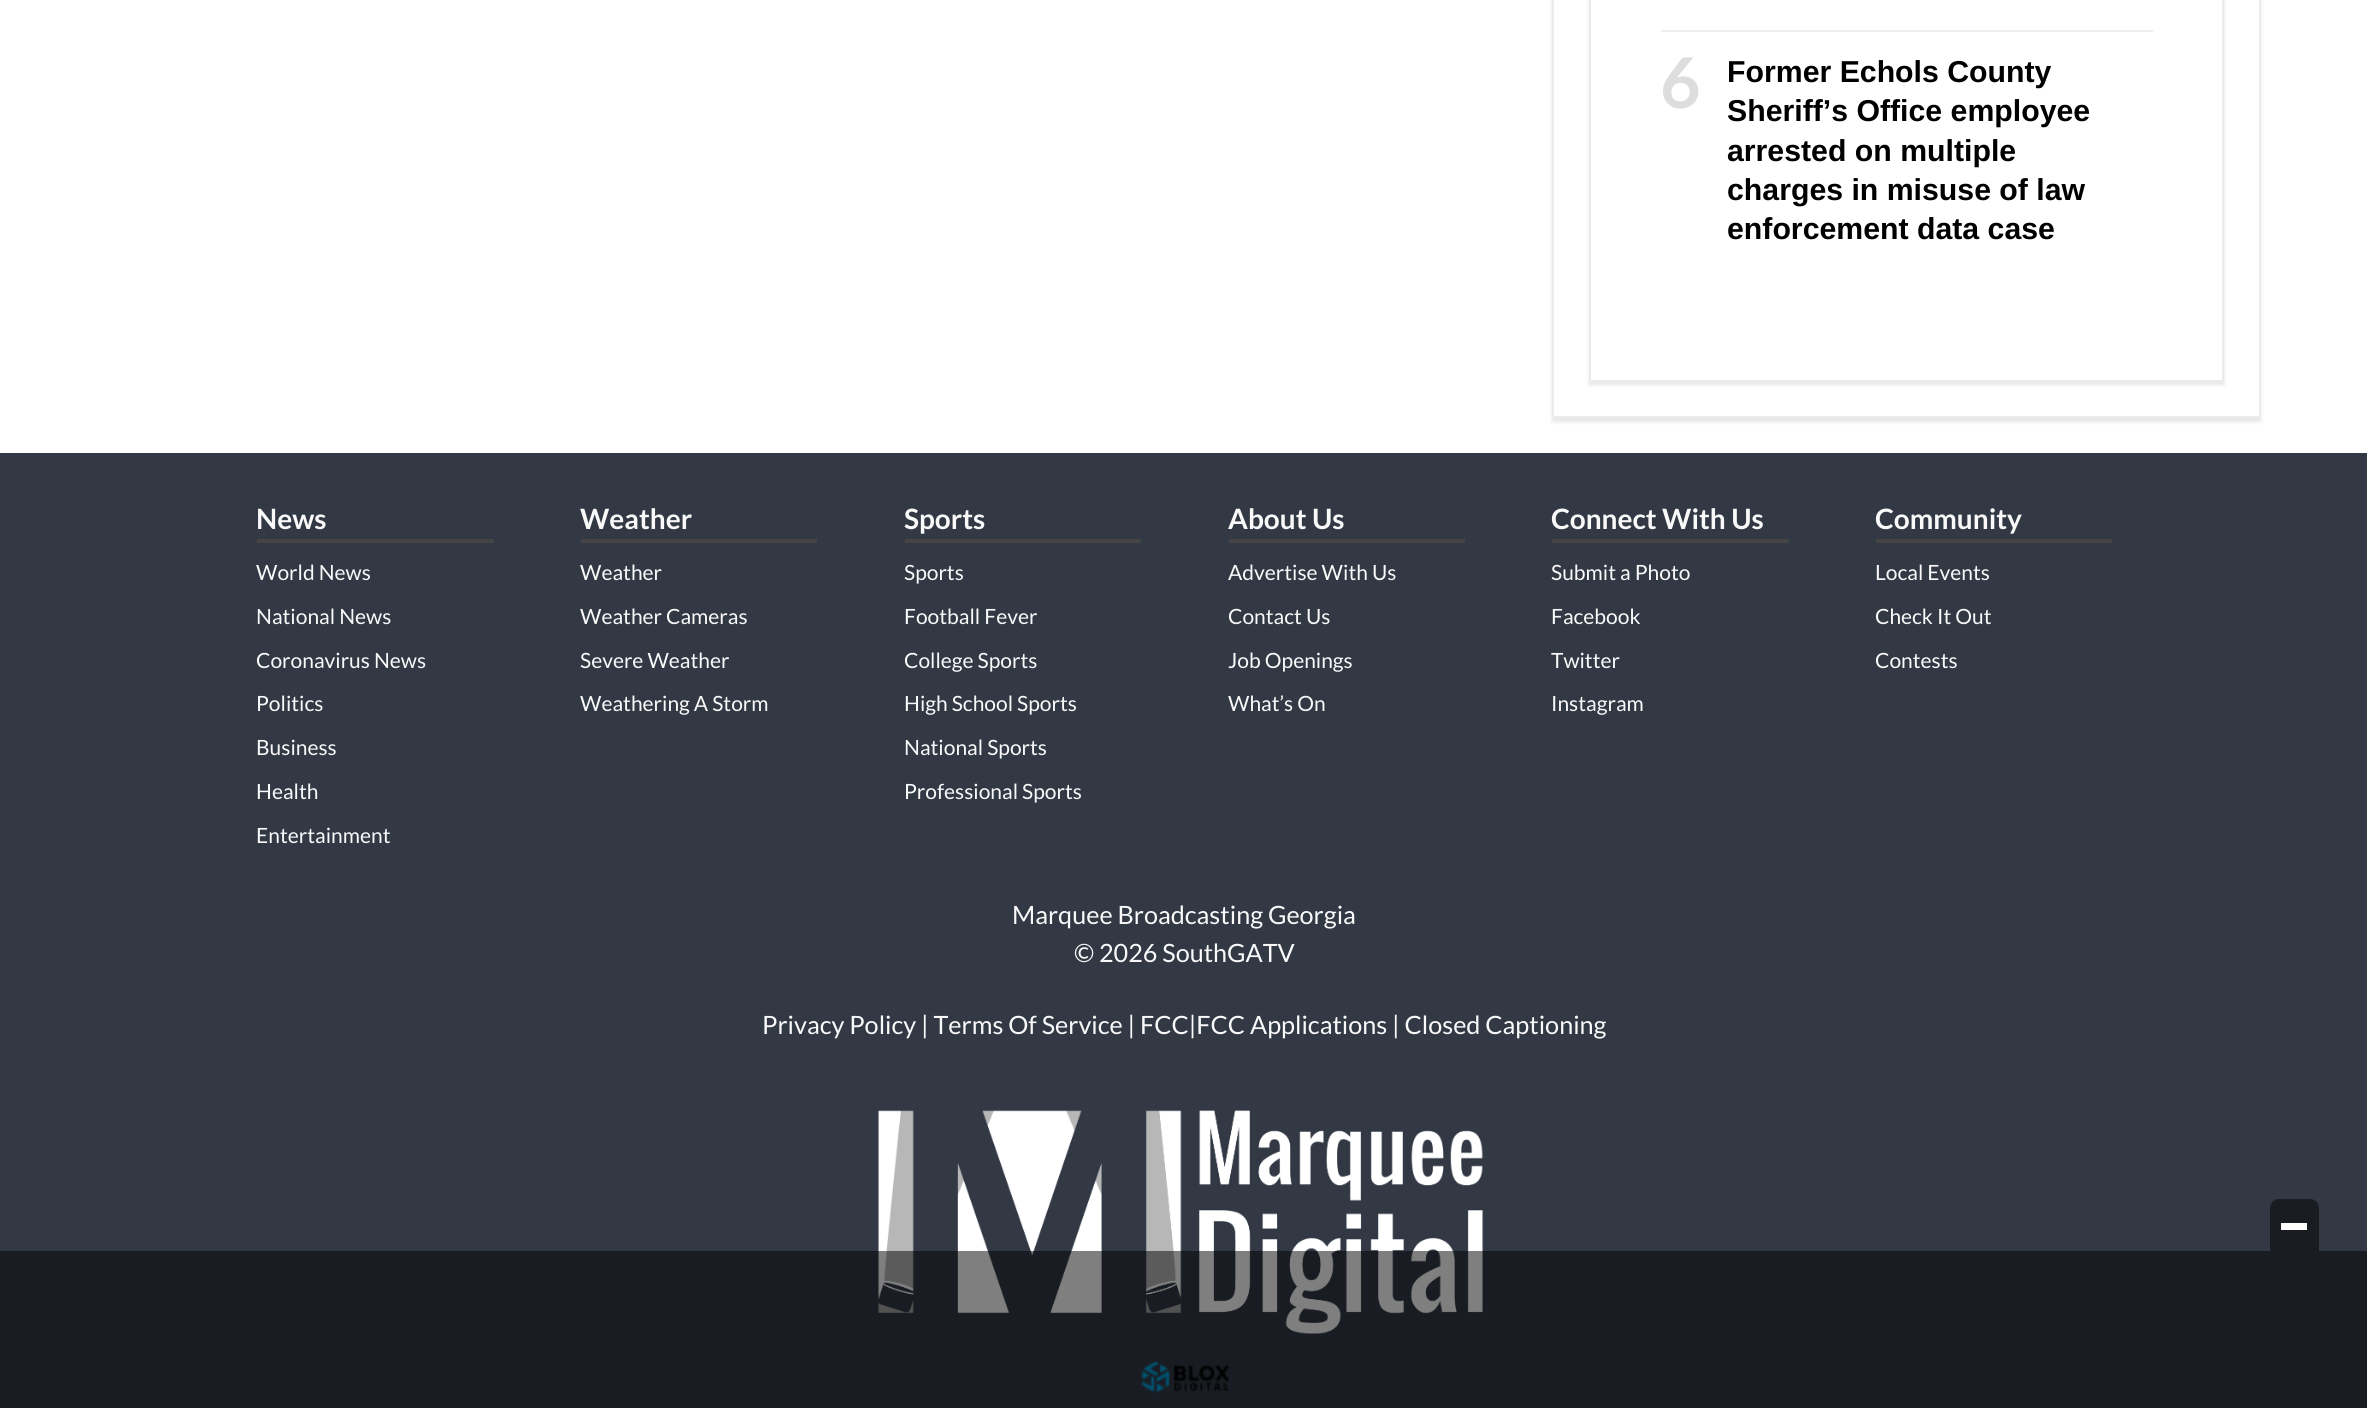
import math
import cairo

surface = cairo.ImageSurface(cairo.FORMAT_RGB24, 2367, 1408)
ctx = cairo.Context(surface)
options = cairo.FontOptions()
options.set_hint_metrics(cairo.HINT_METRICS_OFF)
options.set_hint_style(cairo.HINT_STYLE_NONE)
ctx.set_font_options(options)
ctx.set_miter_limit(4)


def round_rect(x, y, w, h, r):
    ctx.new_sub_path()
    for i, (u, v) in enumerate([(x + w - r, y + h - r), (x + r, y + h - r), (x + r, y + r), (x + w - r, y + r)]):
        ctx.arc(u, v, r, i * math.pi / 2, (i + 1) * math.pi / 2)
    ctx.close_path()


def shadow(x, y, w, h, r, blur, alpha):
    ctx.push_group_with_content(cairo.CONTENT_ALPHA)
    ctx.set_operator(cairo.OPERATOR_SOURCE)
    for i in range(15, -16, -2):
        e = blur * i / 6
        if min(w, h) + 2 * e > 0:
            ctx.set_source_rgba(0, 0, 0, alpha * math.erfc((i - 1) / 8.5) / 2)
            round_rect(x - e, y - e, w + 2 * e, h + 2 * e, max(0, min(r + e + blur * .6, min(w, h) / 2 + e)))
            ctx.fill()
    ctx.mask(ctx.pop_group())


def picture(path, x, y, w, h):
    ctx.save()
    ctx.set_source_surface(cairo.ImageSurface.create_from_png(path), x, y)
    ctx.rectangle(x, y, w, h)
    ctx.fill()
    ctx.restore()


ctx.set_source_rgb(1, 1, 1)
ctx.paint()
ctx.save()
ctx.set_fill_rule(cairo.FILL_RULE_EVEN_ODD)
ctx.new_path()
ctx.move_to(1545, 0)
ctx.line_to(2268, 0)
ctx.line_to(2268, 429)
ctx.line_to(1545, 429)
ctx.close_path()
ctx.move_to(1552, -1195)
ctx.line_to(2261, -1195)
ctx.line_to(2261, 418)
ctx.line_to(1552, 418)
ctx.close_path()
ctx.clip()
ctx.set_source_rgb(0, 0, 0)
shadow(1552, -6, 709, 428, 0, 2, 0.1)
ctx.restore()
ctx.rectangle(1553, -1, 707, 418)
ctx.set_source_rgb(0.918, 0.918, 0.918)
ctx.stroke()
ctx.save()
ctx.set_fill_rule(cairo.FILL_RULE_EVEN_ODD)
ctx.new_path()
ctx.move_to(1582, 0)
ctx.line_to(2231, 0)
ctx.line_to(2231, 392)
ctx.line_to(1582, 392)
ctx.close_path()
ctx.move_to(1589, -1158)
ctx.line_to(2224, -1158)
ctx.line_to(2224, 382)
ctx.line_to(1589, 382)
ctx.close_path()
ctx.clip()
ctx.set_source_rgb(0, 0, 0)
shadow(1589, -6, 635, 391, 0, 2, 0.1)
ctx.restore()
ctx.rectangle(1590, -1, 633, 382)
ctx.stroke()
ctx.set_source_rgb(0.933, 0.933, 0.933)
ctx.rectangle(1661, 30, 492, 2)
ctx.fill()
ctx.select_font_face("Lato", cairo.FONT_SLANT_NORMAL, cairo.FONT_WEIGHT_BOLD)
ctx.set_font_size(70)
ctx.set_source_rgb(0.867, 0.867, 0.867)
ctx.move_to(1660, 108)
ctx.show_text("6")
ctx.select_font_face("Liberation Sans", cairo.FONT_SLANT_NORMAL, cairo.FONT_WEIGHT_BOLD)
ctx.set_font_size(30.25)
ctx.set_source_rgb(0, 0, 0)
ctx.move_to(1727, 82)
ctx.show_text("Former Echols County")
ctx.move_to(1727, 121)
ctx.show_text("Sheriff’s Office employee")
ctx.move_to(1727, 161)
ctx.show_text("arrested on multiple")
ctx.move_to(1727, 200)
ctx.show_text("charges in misuse of law")
ctx.move_to(1727, 239)
ctx.show_text("enforcement data case")
ctx.set_source_rgb(0.196, 0.224, 0.267)
ctx.rectangle(0, 453, 2367, 955)
ctx.fill()
picture("img1.png", 878, 1110, 606, 224)
picture("img2.png", 1141, 1360, 88, 33)
ctx.set_source_rgba(0, 0, 0, 0.5)
ctx.rectangle(0, 1251, 2367, 157)
ctx.fill()
ctx.set_source_rgb(0.098, 0.114, 0.133)
ctx.new_path()
ctx.move_to(2279, 1199)
ctx.line_to(2310, 1199)
ctx.curve_to(2315, 1199, 2319, 1203, 2319, 1208)
ctx.line_to(2319, 1251)
ctx.line_to(2270, 1251)
ctx.line_to(2270, 1208)
ctx.curve_to(2270, 1203, 2274, 1199, 2279, 1199)
ctx.close_path()
ctx.fill()
ctx.set_source_rgb(1, 1, 1)
ctx.rectangle(2281, 1223, 26, 7)
ctx.fill()
ctx.set_source_rgb(0.267, 0.267, 0.267)
ctx.rectangle(257, 539, 237, 4)
ctx.fill()
ctx.select_font_face("Lato", cairo.FONT_SLANT_NORMAL, cairo.FONT_WEIGHT_BOLD)
ctx.set_font_size(28)
ctx.set_source_rgb(0.973, 0.976, 0.98)
ctx.move_to(256, 529)
ctx.show_text("News")
ctx.select_font_face("Lato")
ctx.set_font_size(21)
ctx.move_to(256, 580)
ctx.show_text("World News")
ctx.move_to(256, 624)
ctx.show_text("National News")
ctx.move_to(256, 668)
ctx.show_text("Coronavirus News")
ctx.move_to(256, 711)
ctx.show_text("Politics")
ctx.move_to(256, 755)
ctx.show_text("Business")
ctx.move_to(256, 799)
ctx.show_text("Health")
ctx.move_to(256, 843)
ctx.show_text("Entertainment")
ctx.set_source_rgb(0.267, 0.267, 0.267)
ctx.rectangle(581, 539, 236, 4)
ctx.fill()
ctx.select_font_face("Lato", cairo.FONT_SLANT_NORMAL, cairo.FONT_WEIGHT_BOLD)
ctx.set_font_size(28)
ctx.set_source_rgb(0.973, 0.976, 0.98)
ctx.move_to(580, 529)
ctx.show_text("Weather")
ctx.select_font_face("Lato")
ctx.set_font_size(21)
ctx.move_to(580, 580)
ctx.show_text("Weather")
ctx.move_to(580, 624)
ctx.show_text("Weather Cameras")
ctx.move_to(580, 668)
ctx.show_text("Severe Weather")
ctx.move_to(580, 711)
ctx.show_text("Weathering A Storm")
ctx.set_source_rgb(0.267, 0.267, 0.267)
ctx.rectangle(905, 539, 236, 4)
ctx.fill()
ctx.select_font_face("Lato", cairo.FONT_SLANT_NORMAL, cairo.FONT_WEIGHT_BOLD)
ctx.set_font_size(28)
ctx.set_source_rgb(0.973, 0.976, 0.98)
ctx.move_to(904, 529)
ctx.show_text("Sports")
ctx.select_font_face("Lato")
ctx.set_font_size(21)
ctx.move_to(904, 580)
ctx.show_text("Sports")
ctx.move_to(904, 624)
ctx.show_text("Football Fever")
ctx.move_to(904, 668)
ctx.show_text("College Sports")
ctx.move_to(904, 711)
ctx.show_text("High School Sports")
ctx.move_to(904, 755)
ctx.show_text("National Sports")
ctx.move_to(904, 799)
ctx.show_text("Professional Sports")
ctx.set_source_rgb(0.267, 0.267, 0.267)
ctx.rectangle(1229, 539, 236, 4)
ctx.fill()
ctx.select_font_face("Lato", cairo.FONT_SLANT_NORMAL, cairo.FONT_WEIGHT_BOLD)
ctx.set_font_size(28)
ctx.set_source_rgb(0.973, 0.976, 0.98)
ctx.move_to(1228, 529)
ctx.show_text("About Us")
ctx.select_font_face("Lato")
ctx.set_font_size(21)
ctx.move_to(1228, 580)
ctx.show_text("Advertise With Us")
ctx.move_to(1228, 624)
ctx.show_text("Contact Us")
ctx.move_to(1228, 668)
ctx.show_text("Job Openings")
ctx.move_to(1228, 711)
ctx.show_text("What’s On")
ctx.set_source_rgb(0.267, 0.267, 0.267)
ctx.rectangle(1552, 539, 237, 4)
ctx.fill()
ctx.select_font_face("Lato", cairo.FONT_SLANT_NORMAL, cairo.FONT_WEIGHT_BOLD)
ctx.set_font_size(28)
ctx.set_source_rgb(0.973, 0.976, 0.98)
ctx.move_to(1551, 529)
ctx.show_text("Connect With Us")
ctx.select_font_face("Lato")
ctx.set_font_size(21)
ctx.move_to(1551, 580)
ctx.show_text("Submit a Photo")
ctx.move_to(1551, 624)
ctx.show_text("Facebook")
ctx.move_to(1551, 668)
ctx.show_text("Twitter")
ctx.move_to(1551, 711)
ctx.show_text("Instagram")
ctx.set_source_rgb(0.267, 0.267, 0.267)
ctx.rectangle(1876, 539, 236, 4)
ctx.fill()
ctx.select_font_face("Lato", cairo.FONT_SLANT_NORMAL, cairo.FONT_WEIGHT_BOLD)
ctx.set_font_size(28)
ctx.set_source_rgb(0.973, 0.976, 0.98)
ctx.move_to(1875, 529)
ctx.show_text("Community")
ctx.select_font_face("Lato")
ctx.set_font_size(21)
ctx.move_to(1875, 580)
ctx.show_text("Local Events")
ctx.move_to(1875, 624)
ctx.show_text("Check It Out")
ctx.move_to(1875, 668)
ctx.show_text("Contests")
ctx.set_font_size(25.2)
ctx.move_to(1012, 924)
ctx.show_text("Marquee Broadcasting Georgia")
ctx.move_to(1074, 962)
ctx.show_text("© 2026 SouthGATV")
ctx.move_to(762, 1034)
ctx.show_text("Privacy Policy | Terms Of Service | FCC|FCC Applications | Closed Captioning")
surface.write_to_png("page.png")
